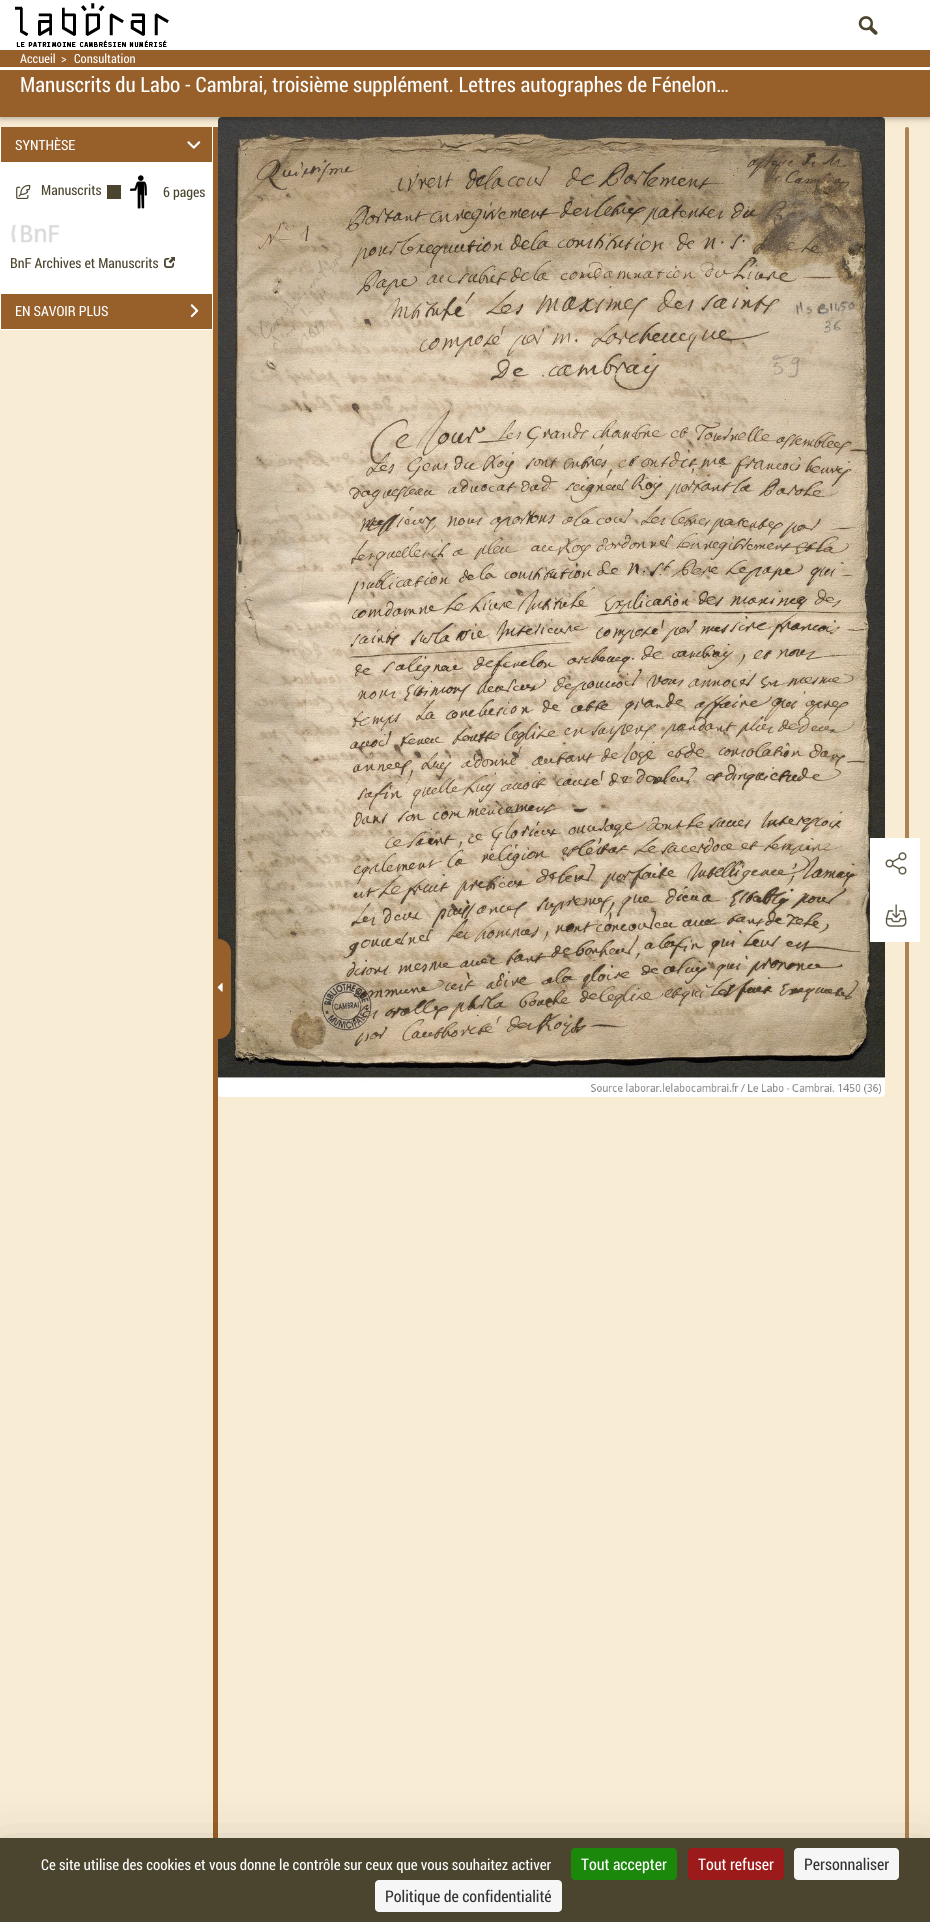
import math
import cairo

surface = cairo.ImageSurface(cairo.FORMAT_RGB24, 930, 1922)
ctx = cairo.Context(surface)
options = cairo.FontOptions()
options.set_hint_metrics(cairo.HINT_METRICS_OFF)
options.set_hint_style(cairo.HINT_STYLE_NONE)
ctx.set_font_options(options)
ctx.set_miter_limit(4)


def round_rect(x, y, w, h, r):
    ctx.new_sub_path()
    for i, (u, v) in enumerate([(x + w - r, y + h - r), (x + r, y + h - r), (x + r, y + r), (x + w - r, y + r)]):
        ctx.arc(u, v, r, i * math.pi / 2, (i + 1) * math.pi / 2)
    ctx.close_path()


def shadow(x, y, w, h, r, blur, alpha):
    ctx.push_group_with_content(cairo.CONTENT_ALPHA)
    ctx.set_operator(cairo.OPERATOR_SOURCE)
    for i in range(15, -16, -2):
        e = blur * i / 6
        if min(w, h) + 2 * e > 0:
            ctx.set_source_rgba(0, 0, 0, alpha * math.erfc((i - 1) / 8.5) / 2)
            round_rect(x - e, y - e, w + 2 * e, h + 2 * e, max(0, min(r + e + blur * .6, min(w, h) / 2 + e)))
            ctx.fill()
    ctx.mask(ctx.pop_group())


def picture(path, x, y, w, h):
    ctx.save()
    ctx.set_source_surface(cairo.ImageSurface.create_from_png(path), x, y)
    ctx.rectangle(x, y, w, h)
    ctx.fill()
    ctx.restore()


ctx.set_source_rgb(0.973, 0.925, 0.831)
ctx.paint()
picture("img10.png", 218, 117, 667, 980)
ctx.set_source_rgb(0.686, 0.51, 0.333)
round_rect(905, 127, 4, 1775, 2)
ctx.fill()
ctx.set_source_rgb(0, 0, 0)
shadow(0, 52, 930, 67, 0, 5, 0.12)
shadow(0, 52, 930, 67, 0, 2, 0.16)
ctx.set_source_rgb(1, 1, 1)
ctx.rectangle(0, 0, 930, 50)
ctx.fill()
picture("img1.png", 15, 3, 154, 44)
picture("img2.png", 858, 16, 20, 19)
ctx.set_source_rgb(0.592, 0.373, 0.165)
ctx.rectangle(0, 50, 930, 67)
ctx.fill()
ctx.set_source_rgb(1, 1, 1)
ctx.rectangle(0, 67, 930, 3)
ctx.fill()
ctx.select_font_face("Roboto Condensed")
ctx.set_font_size(12.5)
ctx.move_to(20, 63)
ctx.show_text("Accueil")
ctx.move_to(61, 63)
ctx.show_text(">")
ctx.move_to(74, 63)
ctx.show_text("Consultation")
ctx.set_font_size(21)
ctx.move_to(20, 92)
ctx.show_text("Manuscrits du Labo - Cambrai, troisième supplément. Lettres autographes de Fénelon…")
ctx.set_source_rgb(0.592, 0.373, 0.165)
ctx.rectangle(213, 127, 5, 1711)
ctx.fill()
ctx.set_source_rgb(1, 1, 1)
ctx.rectangle(0, 127, 213, 203)
ctx.fill()
ctx.set_source_rgb(0.592, 0.373, 0.165)
ctx.rectangle(1, 127, 211, 35)
ctx.fill()
ctx.set_font_size(14)
ctx.set_source_rgb(1, 1, 1)
ctx.move_to(15, 150)
ctx.show_text("SYNTHÈSE")
picture("img3.png", 187, 141, 14, 8)
picture("img4.png", 16, 184, 15, 15)
ctx.set_source_rgb(0.294, 0.271, 0.184)
ctx.move_to(41, 195)
ctx.show_text("Manuscrits")
ctx.rectangle(107, 185, 14, 14)
ctx.fill()
picture("img5.png", 130, 175, 17, 34)
ctx.move_to(163, 197)
ctx.show_text("6 pages")
picture("img6.png", 11, 224, 49, 19)
ctx.move_to(10, 268)
ctx.show_text("BnF Archives et Manuscrits")
picture("img7.png", 164, 257, 11, 11)
ctx.set_source_rgb(0.592, 0.373, 0.165)
ctx.rectangle(1, 294, 211, 35)
ctx.fill()
ctx.set_source_rgb(1, 1, 1)
ctx.move_to(15, 316)
ctx.show_text("EN SAVOIR PLUS")
picture("img8.png", 190, 304, 9, 14)
ctx.set_source_rgb(0.592, 0.373, 0.165)
ctx.new_path()
ctx.move_to(218.5, 939.5)
ctx.line_to(218, 939.5)
ctx.curve_to(225, 939.5, 230.5, 945, 230.5, 952)
ctx.line_to(230.5, 1026)
ctx.curve_to(230.5, 1033, 225, 1038.5, 218, 1038.5)
ctx.line_to(218.5, 1038.5)
ctx.close_path()
ctx.fill_preserve()
ctx.set_line_width(1)
ctx.stroke()
picture("img9.png", 217, 983, 6, 9)
ctx.set_source_rgb(1, 1, 1)
ctx.rectangle(870, 838, 50, 104)
ctx.fill()
picture("img11.png", 885, 852, 22, 23)
picture("img12.png", 885, 904, 22, 23)
ctx.set_source_rgb(0, 0, 0)
shadow(0, 1858, 930, 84, 0, 30, 0.25)
ctx.set_source_rgb(0.294, 0.271, 0.184)
ctx.rectangle(0, 1838, 930, 84)
ctx.fill()
ctx.set_font_size(15)
ctx.set_source_rgb(1, 1, 1)
ctx.move_to(41, 1870)
ctx.show_text("Ce site utilise des cookies et vous donne le contrôle sur ceux que vous souhaitez activer")
ctx.set_source_rgb(0.106, 0.529, 0.043)
round_rect(571, 1848, 106, 32, 4)
ctx.fill()
ctx.set_font_size(16)
ctx.set_source_rgb(1, 1, 1)
ctx.move_to(581, 1870)
ctx.show_text("Tout accepter")
ctx.set_source_rgb(0.612, 0.102, 0.102)
round_rect(688, 1848, 96, 32, 4)
ctx.fill()
ctx.set_source_rgb(1, 1, 1)
ctx.move_to(698, 1870)
ctx.show_text("Tout refuser")
ctx.set_source_rgb(0.961, 0.961, 0.961)
round_rect(794, 1848, 105, 32, 4)
ctx.fill()
ctx.set_source_rgb(0.2, 0.2, 0.2)
ctx.move_to(804, 1870)
ctx.show_text("Personnaliser")
ctx.set_source_rgb(0.961, 0.961, 0.961)
round_rect(375, 1880, 187, 32, 4)
ctx.fill()
ctx.set_source_rgb(0.2, 0.2, 0.2)
ctx.move_to(385, 1902)
ctx.show_text("Politique de confidentialité")
surface.write_to_png("page.png")
